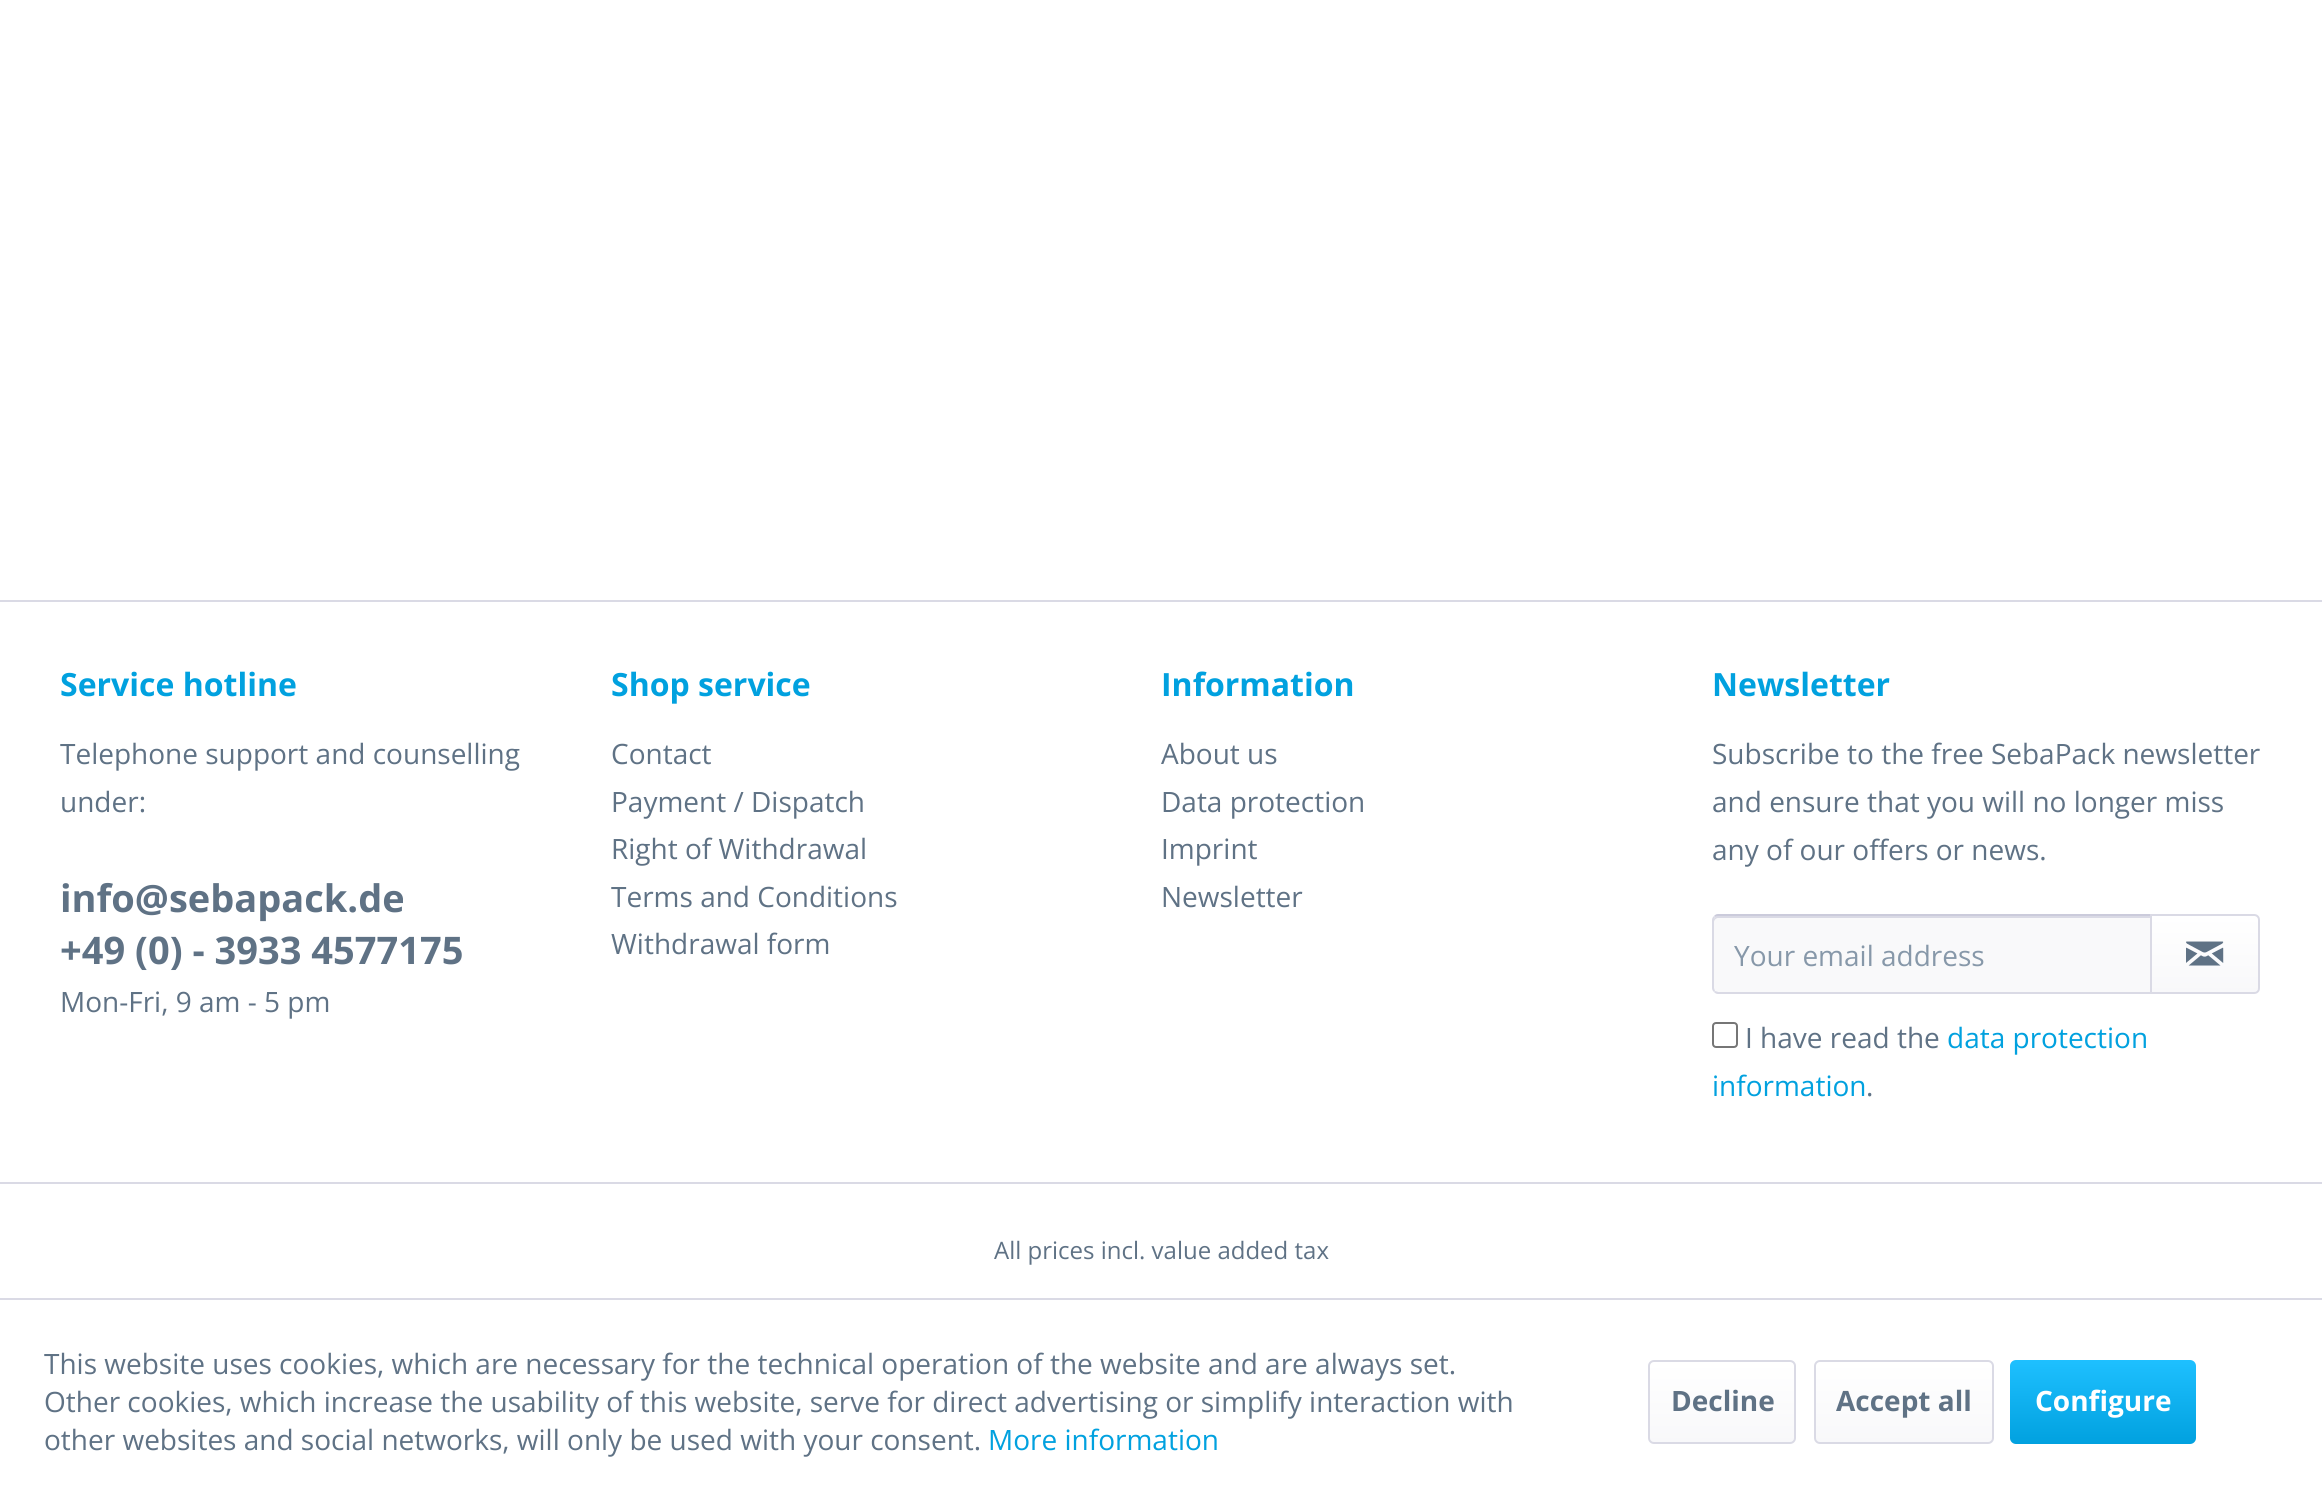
import math
import cairo

surface = cairo.ImageSurface(cairo.FORMAT_RGB24, 2322, 1502)
ctx = cairo.Context(surface)
options = cairo.FontOptions()
options.set_hint_metrics(cairo.HINT_METRICS_OFF)
options.set_hint_style(cairo.HINT_STYLE_NONE)
ctx.set_font_options(options)
ctx.set_miter_limit(4)


def round_rect(x, y, w, h, r):
    ctx.new_sub_path()
    for i, (u, v) in enumerate([(x + w - r, y + h - r), (x + r, y + h - r), (x + r, y + r), (x + w - r, y + r)]):
        ctx.arc(u, v, r, i * math.pi / 2, (i + 1) * math.pi / 2)
    ctx.close_path()


def picture(path, x, y, w, h):
    ctx.save()
    ctx.set_source_surface(cairo.ImageSurface.create_from_png(path), x, y)
    ctx.rectangle(x, y, w, h)
    ctx.fill()
    ctx.restore()


ctx.set_source_rgb(1, 1, 1)
ctx.paint()
ctx.set_source_rgb(0.855, 0.855, 0.898)
ctx.rectangle(0, 600, 2322, 2)
ctx.fill()
ctx.rectangle(0, 1182, 2322, 2)
ctx.fill()
ctx.select_font_face("Open Sans", cairo.FONT_SLANT_NORMAL, cairo.FONT_WEIGHT_BOLD)
ctx.set_font_size(32)
ctx.set_source_rgb(0.004, 0.631, 0.875)
ctx.move_to(60, 696)
ctx.show_text("Service hotline")
ctx.select_font_face("Open Sans")
ctx.set_font_size(28)
ctx.set_source_rgb(0.373, 0.447, 0.522)
ctx.move_to(60, 764)
ctx.show_text("Telephone support and counselling")
ctx.move_to(60, 812)
ctx.show_text("under:")
ctx.select_font_face("Open Sans", cairo.FONT_SLANT_NORMAL, cairo.FONT_WEIGHT_BOLD)
ctx.set_font_size(38)
ctx.move_to(60, 912)
ctx.show_text("info@sebapack.de")
ctx.move_to(60, 964)
ctx.show_text("+49 (0) - 3933 4577175")
ctx.select_font_face("Open Sans")
ctx.set_font_size(28)
ctx.move_to(60, 1012)
ctx.show_text("Mon-Fri, 9 am - 5 pm")
ctx.select_font_face("Open Sans", cairo.FONT_SLANT_NORMAL, cairo.FONT_WEIGHT_BOLD)
ctx.set_font_size(32)
ctx.set_source_rgb(0.004, 0.631, 0.875)
ctx.move_to(611, 696)
ctx.show_text("Shop service")
ctx.select_font_face("Open Sans")
ctx.set_font_size(28)
ctx.set_source_rgb(0.373, 0.447, 0.522)
ctx.move_to(611, 764)
ctx.show_text("Contact")
ctx.move_to(611, 812)
ctx.show_text("Payment / Dispatch")
ctx.move_to(611, 859)
ctx.show_text("Right of Withdrawal")
ctx.move_to(611, 907)
ctx.show_text("Terms and Conditions")
ctx.move_to(611, 954)
ctx.show_text("Withdrawal form")
ctx.select_font_face("Open Sans", cairo.FONT_SLANT_NORMAL, cairo.FONT_WEIGHT_BOLD)
ctx.set_font_size(32)
ctx.set_source_rgb(0.004, 0.631, 0.875)
ctx.move_to(1161, 696)
ctx.show_text("Information")
ctx.select_font_face("Open Sans")
ctx.set_font_size(28)
ctx.set_source_rgb(0.373, 0.447, 0.522)
ctx.move_to(1161, 764)
ctx.show_text("About us")
ctx.move_to(1161, 812)
ctx.show_text("Data protection")
ctx.move_to(1161, 859)
ctx.show_text("Imprint")
ctx.move_to(1161, 907)
ctx.show_text("Newsletter")
ctx.select_font_face("Open Sans", cairo.FONT_SLANT_NORMAL, cairo.FONT_WEIGHT_BOLD)
ctx.set_font_size(32)
ctx.set_source_rgb(0.004, 0.631, 0.875)
ctx.move_to(1712, 696)
ctx.show_text("Newsletter")
ctx.select_font_face("Open Sans")
ctx.set_font_size(28)
ctx.set_source_rgb(0.373, 0.447, 0.522)
ctx.move_to(1712, 764)
ctx.show_text("Subscribe to the free SebaPack newsletter")
ctx.move_to(1712, 812)
ctx.show_text("and ensure that you will no longer miss")
ctx.move_to(1712, 860)
ctx.show_text("any of our offers or news.")
ctx.set_source_rgb(0.973, 0.973, 0.98)
ctx.new_path()
ctx.move_to(1718, 916)
ctx.line_to(2150, 916)
ctx.line_to(2150, 992)
ctx.line_to(1718, 992)
ctx.curve_to(1716, 992, 1714, 990, 1714, 988)
ctx.line_to(1714, 920)
ctx.curve_to(1714, 918, 1716, 916, 1718, 916)
ctx.close_path()
ctx.fill()
ctx.set_source_rgb(0.855, 0.855, 0.898)
ctx.new_path()
ctx.move_to(1718, 918)
ctx.line_to(2150, 918)
ctx.line_to(2150, 916)
ctx.line_to(1718, 916)
ctx.curve_to(1716, 916, 1714, 918, 1714, 920)
ctx.line_to(1714, 922)
ctx.curve_to(1714, 920, 1716, 918, 1718, 918)
ctx.close_path()
ctx.fill()
ctx.set_source_rgb(0.796, 0.796, 0.859)
ctx.new_path()
ctx.move_to(1718, 914)
ctx.curve_to(1716, 914, 1715, 915, 1714, 916)
ctx.line_to(1715, 917)
ctx.line_to(1718, 916)
ctx.line_to(2150, 916)
ctx.line_to(2152, 914)
ctx.close_path()
ctx.fill()
ctx.set_source_rgb(0.855, 0.855, 0.898)
ctx.new_path()
ctx.move_to(2152, 994)
ctx.line_to(2150, 992)
ctx.line_to(1718, 992)
ctx.line_to(1715, 991)
ctx.line_to(1714, 992)
ctx.curve_to(1715, 993, 1716, 994, 1718, 994)
ctx.close_path()
ctx.fill()
ctx.new_path()
ctx.move_to(1712, 920)
ctx.line_to(1712, 988)
ctx.curve_to(1712, 990, 1713, 991, 1714, 992)
ctx.line_to(1715, 991)
ctx.line_to(1714, 988)
ctx.line_to(1714, 920)
ctx.line_to(1715, 917)
ctx.line_to(1714, 916)
ctx.curve_to(1713, 917, 1712, 918, 1712, 920)
ctx.close_path()
ctx.fill()
ctx.set_source_rgb(0.529, 0.596, 0.663)
ctx.move_to(1734, 966)
ctx.show_text("Your email address")
gradient = cairo.LinearGradient(2205, 916, 2205, 992)
gradient.add_color_stop_rgba(0, 1, 1, 1, 1)
gradient.add_color_stop_rgba(1, 0.973, 0.973, 0.98, 1)
ctx.set_source(gradient)
ctx.new_path()
ctx.move_to(2152, 916)
ctx.line_to(2254, 916)
ctx.curve_to(2256, 916, 2258, 918, 2258, 920)
ctx.line_to(2258, 988)
ctx.curve_to(2258, 990, 2256, 992, 2254, 992)
ctx.line_to(2152, 992)
ctx.close_path()
ctx.fill()
ctx.new_path()
ctx.move_to(2151, 915)
ctx.line_to(2254, 915)
ctx.curve_to(2257, 915, 2259, 917, 2259, 920)
ctx.line_to(2259, 988)
ctx.curve_to(2259, 991, 2257, 993, 2254, 993)
ctx.line_to(2151, 993)
ctx.close_path()
ctx.set_source_rgb(0.855, 0.855, 0.898)
ctx.stroke()
picture("img1.png", 2186, 941, 38, 25)
round_rect(1713, 1023, 24, 24, 3)
ctx.set_source_rgb(0.463, 0.463, 0.463)
ctx.stroke()
ctx.set_source_rgb(0.373, 0.447, 0.522)
ctx.move_to(1745, 1048)
ctx.show_text("I have read the")
ctx.set_source_rgb(0.004, 0.631, 0.875)
ctx.move_to(1947, 1048)
ctx.show_text("data protection")
ctx.move_to(1712, 1096)
ctx.show_text("information")
ctx.set_source_rgb(0.373, 0.447, 0.522)
ctx.move_to(1866, 1096)
ctx.show_text(".")
ctx.set_font_size(24)
ctx.move_to(994, 1259)
ctx.show_text("All prices incl. value added tax")
ctx.set_source_rgb(0.855, 0.855, 0.898)
ctx.rectangle(0, 1298, 2322, 2)
ctx.fill()
ctx.set_font_size(28)
ctx.set_source_rgb(0.373, 0.447, 0.522)
ctx.move_to(44, 1374)
ctx.show_text("This website uses cookies, which are necessary for the technical operation of the website and are always set.")
ctx.move_to(44, 1412)
ctx.show_text("Other cookies, which increase the usability of this website, serve for direct advertising or simplify interaction with")
ctx.move_to(44, 1450)
ctx.show_text("other websites and social networks, will only be used with your consent.")
ctx.set_source_rgb(0.004, 0.631, 0.875)
ctx.move_to(988, 1450)
ctx.show_text("More information")
gradient = cairo.LinearGradient(1722, 1362, 1722, 1442)
gradient.add_color_stop_rgba(0, 1, 1, 1, 1)
gradient.add_color_stop_rgba(1, 0.973, 0.973, 0.98, 1)
ctx.set_source(gradient)
round_rect(1650, 1362, 144, 80, 4)
ctx.fill()
round_rect(1649, 1361, 146, 82, 5)
ctx.set_source_rgb(0.855, 0.855, 0.898)
ctx.stroke()
ctx.select_font_face("Open Sans", cairo.FONT_SLANT_NORMAL, cairo.FONT_WEIGHT_BOLD)
ctx.set_source_rgb(0.373, 0.447, 0.522)
ctx.move_to(1671, 1411)
ctx.show_text("Decline")
gradient = cairo.LinearGradient(1904, 1362, 1904, 1442)
gradient.add_color_stop_rgba(0, 1, 1, 1, 1)
gradient.add_color_stop_rgba(1, 0.973, 0.973, 0.98, 1)
ctx.set_source(gradient)
round_rect(1816, 1362, 176, 80, 4)
ctx.fill()
round_rect(1815, 1361, 178, 82, 5)
ctx.set_source_rgb(0.855, 0.855, 0.898)
ctx.stroke()
ctx.set_source_rgb(0.373, 0.447, 0.522)
ctx.move_to(1836, 1411)
ctx.show_text("Accept all")
gradient = cairo.LinearGradient(2103, 1360, 2103, 1444)
gradient.add_color_stop_rgba(0, 0.118, 0.753, 1, 1)
gradient.add_color_stop_rgba(1, 0.004, 0.631, 0.875, 1)
ctx.set_source(gradient)
round_rect(2010, 1360, 186, 84, 6)
ctx.fill()
ctx.set_source_rgb(1, 1, 1)
ctx.move_to(2035, 1411)
ctx.show_text("Configure")
surface.write_to_png("page.png")
